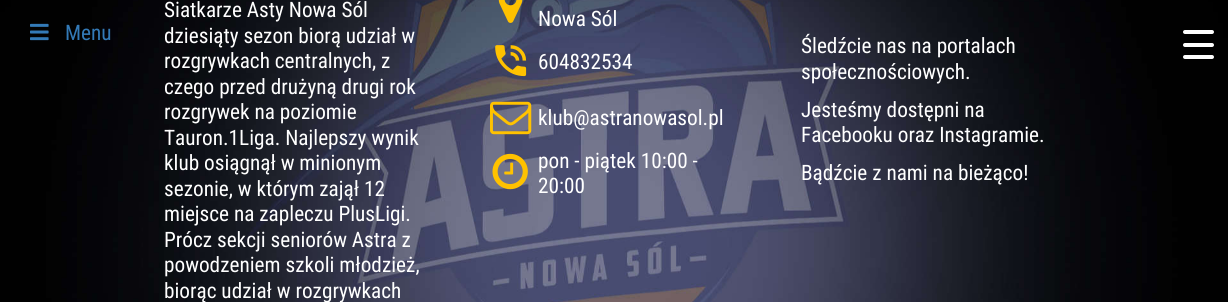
import math
import cairo

surface = cairo.ImageSurface(cairo.FORMAT_RGB24, 1228, 302)
ctx = cairo.Context(surface)
options = cairo.FontOptions()
options.set_hint_metrics(cairo.HINT_METRICS_OFF)
options.set_hint_style(cairo.HINT_STYLE_NONE)
ctx.set_font_options(options)
ctx.set_miter_limit(4)


def round_rect(x, y, w, h, r):
    ctx.new_sub_path()
    for i, (u, v) in enumerate([(x + w - r, y + h - r), (x + r, y + h - r), (x + r, y + r), (x + w - r, y + r)]):
        ctx.arc(u, v, r, i * math.pi / 2, (i + 1) * math.pi / 2)
    ctx.close_path()


def picture(path, x, y, w, h):
    ctx.save()
    ctx.set_source_surface(cairo.ImageSurface.create_from_png(path), x, y)
    ctx.rectangle(x, y, w, h)
    ctx.fill()
    ctx.restore()


ctx.set_source_rgb(1, 1, 1)
ctx.paint()
picture("img2.png", 0, 0, 1228, 302)
picture("img1.png", 30, 23, 19, 18)
ctx.select_font_face("Roboto Condensed")
ctx.set_font_size(21.25)
ctx.set_source_rgb(0.2, 0.478, 0.718)
ctx.move_to(65, 40)
ctx.show_text("Menu")
ctx.set_source_rgb(1, 1, 1)
ctx.move_to(164, 17)
ctx.show_text("Siatkarze Asty Nowa Sól")
ctx.move_to(164, 43)
ctx.show_text("dziesiąty sezon biorą udział w")
ctx.move_to(164, 68)
ctx.show_text("rozgrywkach centralnych, z")
ctx.move_to(164, 94)
ctx.show_text("czego przed drużyną drugi rok")
ctx.move_to(164, 119)
ctx.show_text("rozgrywek na poziomie")
ctx.move_to(164, 145)
ctx.show_text("Tauron.1Liga. Najlepszy wynik")
ctx.move_to(164, 170)
ctx.show_text("klub osiągnął w minionym")
ctx.move_to(164, 196)
ctx.show_text("sezonie, w którym zajął 12")
ctx.move_to(164, 221)
ctx.show_text("miejsce na zapleczu PlusLigi.")
ctx.move_to(164, 247)
ctx.show_text("Prócz sekcji seniorów Astra z")
ctx.move_to(164, 272)
ctx.show_text("powodzeniem szkoli młodzież,")
ctx.move_to(164, 298)
ctx.show_text("biorąc udział w rozgrywkach")
picture("img3.png", 498, 0, 25, 23)
ctx.move_to(538, 26)
ctx.show_text("Nowa Sól")
picture("img4.png", 495, 45, 32, 32)
ctx.move_to(538, 69)
ctx.show_text("604832534")
picture("img5.png", 490, 101, 42, 34)
ctx.move_to(538, 125)
ctx.show_text("klub@astranowasol.pl")
picture("img6.png", 492, 153, 36, 37)
ctx.move_to(538, 168)
ctx.show_text("pon - piątek 10:00 -")
ctx.move_to(538, 193)
ctx.show_text("20:00")
ctx.move_to(801, 53)
ctx.show_text("Śledźcie nas na portalach")
ctx.move_to(801, 79)
ctx.show_text("społecznościowych.")
ctx.move_to(801, 117)
ctx.show_text("Jesteśmy dostępni na")
ctx.move_to(801, 142)
ctx.show_text("Facebooku oraz Instagramie.")
ctx.move_to(801, 180)
ctx.show_text("Bądźcie z nami na bieżąco!")
round_rect(1183, 43, 31, 4, 2)
ctx.fill()
round_rect(1183, 30, 31, 4, 2)
ctx.fill()
round_rect(1183, 55, 31, 4, 2)
ctx.fill()
surface.write_to_png("page.png")
